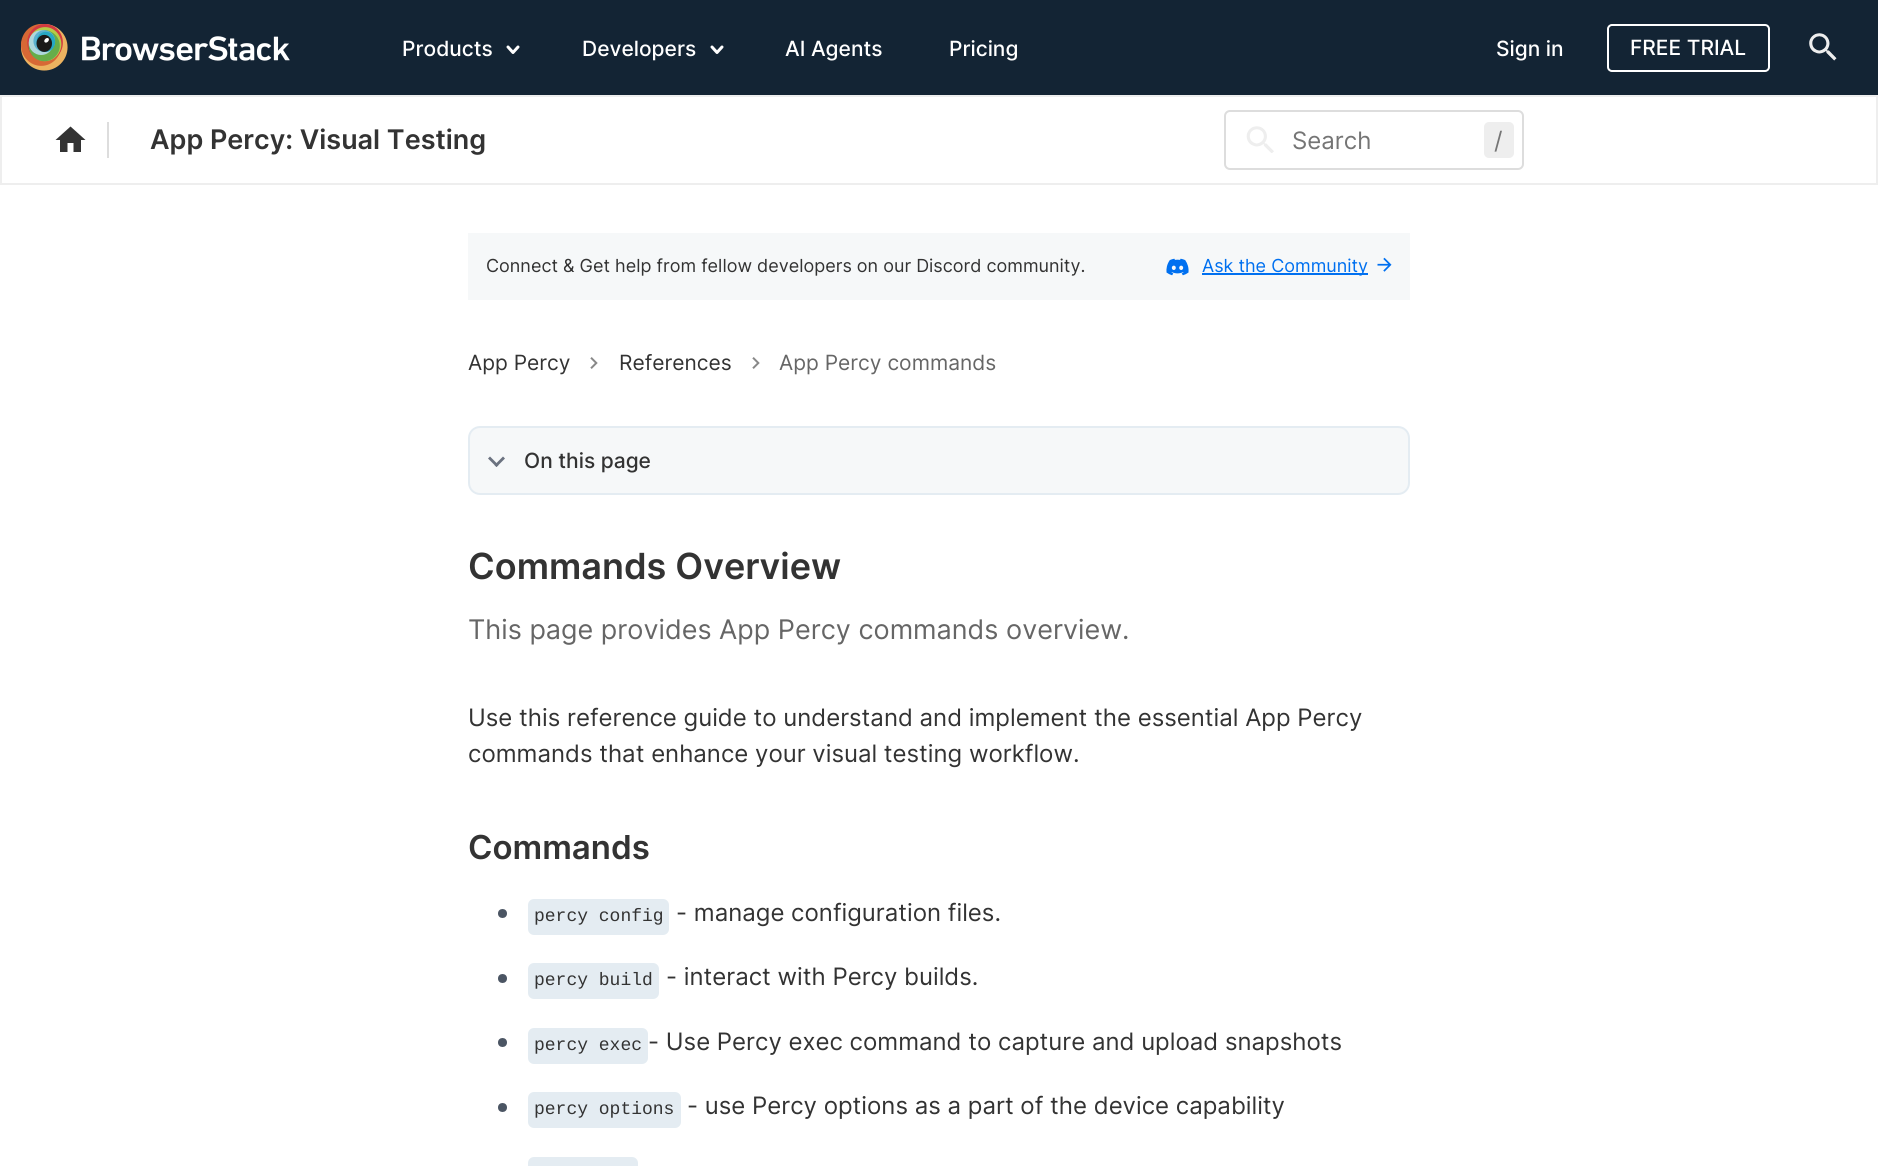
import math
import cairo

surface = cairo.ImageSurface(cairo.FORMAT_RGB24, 1878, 1166)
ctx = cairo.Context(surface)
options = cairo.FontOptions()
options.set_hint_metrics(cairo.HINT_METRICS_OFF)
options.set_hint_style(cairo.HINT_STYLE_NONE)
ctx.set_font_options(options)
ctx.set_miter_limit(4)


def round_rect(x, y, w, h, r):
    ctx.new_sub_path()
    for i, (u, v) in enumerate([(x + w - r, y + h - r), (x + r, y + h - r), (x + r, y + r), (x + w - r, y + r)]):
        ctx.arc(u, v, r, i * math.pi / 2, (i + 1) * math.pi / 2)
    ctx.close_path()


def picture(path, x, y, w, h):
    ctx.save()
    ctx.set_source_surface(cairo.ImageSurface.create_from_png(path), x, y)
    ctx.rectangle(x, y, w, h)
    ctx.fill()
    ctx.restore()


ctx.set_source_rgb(1, 1, 1)
ctx.paint()
ctx.set_source_rgb(0.078, 0.141, 0.204)
ctx.rectangle(0, 0, 1878, 95)
ctx.fill()
picture("img1.png", 21, 24, 269, 47)
ctx.select_font_face("Inter Medium")
ctx.set_font_size(21)
ctx.set_source_rgb(1, 1, 1)
ctx.move_to(402, 56)
ctx.show_text("Products")
ctx.new_path()
ctx.move_to(518, 47)
ctx.line_to(513, 52.5)
ctx.line_to(508, 47)
ctx.set_line_width(3)
ctx.set_line_cap(cairo.LINE_CAP_ROUND)
ctx.set_line_join(cairo.LINE_JOIN_ROUND)
ctx.stroke()
ctx.move_to(582, 56)
ctx.show_text("Developers")
ctx.new_path()
ctx.move_to(722, 47)
ctx.line_to(717, 52.5)
ctx.line_to(712, 47)
ctx.stroke()
ctx.move_to(785, 56)
ctx.show_text("AI Agents")
ctx.move_to(949, 56)
ctx.show_text("Pricing")
ctx.move_to(1496, 56)
ctx.show_text("Sign in")
round_rect(1608, 25, 161, 46, 4)
ctx.set_line_width(2)
ctx.set_line_cap(cairo.LINE_CAP_BUTT)
ctx.set_line_join(cairo.LINE_JOIN_MITER)
ctx.stroke()
ctx.move_to(1630, 55)
ctx.show_text("FREE TRIAL")
picture("img2.png", 1809, 33, 28, 28)
ctx.rectangle(1, 96, 1876, 88)
ctx.set_source_rgb(0.933, 0.933, 0.933)
ctx.stroke()
ctx.set_source_rgb(0.867, 0.867, 0.867)
ctx.rectangle(107, 122, 2, 36)
ctx.fill()
ctx.set_source_rgb(0.2, 0.2, 0.2)
ctx.new_path()
ctx.move_to(67.5, 152)
ctx.line_to(67.5, 143)
ctx.line_to(73.5, 143)
ctx.line_to(73.5, 152)
ctx.line_to(81, 152)
ctx.line_to(81, 140)
ctx.line_to(85.5, 140)
ctx.line_to(70.5, 126.5)
ctx.line_to(55.5, 140)
ctx.line_to(60, 140)
ctx.line_to(60, 152)
ctx.close_path()
ctx.fill()
ctx.select_font_face("Inter SemiBold")
ctx.set_font_size(27)
ctx.move_to(150, 149)
ctx.show_text("App Percy: Visual Testing")
round_rect(1225, 111, 298, 58, 5)
ctx.set_source_rgb(0.867, 0.867, 0.867)
ctx.stroke()
picture("img3.png", 1246, 126, 28, 27)
ctx.select_font_face("Inter")
ctx.set_font_size(24)
ctx.set_source_rgb(0.459, 0.459, 0.459)
ctx.move_to(1292, 149)
ctx.show_text("Search")
ctx.set_source_rgb(0.933, 0.933, 0.933)
round_rect(1484, 122, 30, 36, 5)
ctx.fill()
ctx.set_source_rgb(0.459, 0.459, 0.459)
ctx.move_to(1494, 149)
ctx.show_text("/")
ctx.set_source_rgb(0.961, 0.969, 0.976)
ctx.rectangle(468, 233, 942, 67)
ctx.fill()
ctx.set_font_size(18)
ctx.set_source_rgb(0.2, 0.2, 0.2)
ctx.move_to(486, 272)
ctx.show_text("Connect & Get help from fellow developers on our Discord community.")
picture("img4.png", 1166, 258, 23, 18)
ctx.set_source_rgb(0, 0.439, 0.941)
ctx.rectangle(1202, 273, 166, 2)
ctx.fill()
ctx.move_to(1202, 272)
ctx.show_text("Ask the Community")
picture("img5.png", 1377, 257, 15, 15)
ctx.set_font_size(21)
ctx.set_source_rgb(0.2, 0.2, 0.2)
ctx.move_to(468, 370)
ctx.show_text("App Percy")
picture("img6.png", 590, 357, 8, 12)
ctx.move_to(619, 370)
ctx.show_text("References")
picture("img6.png", 752, 357, 8, 12)
ctx.set_source_rgb(0.4, 0.4, 0.4)
ctx.move_to(779, 370)
ctx.show_text("App Percy commands")
ctx.set_source_rgb(0.961, 0.969, 0.976)
round_rect(469, 427, 940, 67, 11)
ctx.fill_preserve()
ctx.set_source_rgb(0.894, 0.922, 0.949)
ctx.stroke()
ctx.set_source_rgb(0.42, 0.447, 0.502)
ctx.new_path()
ctx.move_to(503, 456.5)
ctx.line_to(505, 458.5)
ctx.line_to(496.5, 467)
ctx.line_to(494.5, 465)
ctx.close_path()
ctx.fill()
ctx.new_path()
ctx.move_to(490, 456.5)
ctx.line_to(498.5, 465)
ctx.line_to(496.5, 467)
ctx.line_to(488, 458.5)
ctx.close_path()
ctx.fill()
ctx.select_font_face("Inter Medium")
ctx.set_source_rgb(0.2, 0.2, 0.2)
ctx.move_to(524, 468)
ctx.show_text("On this page")
ctx.select_font_face("Inter SemiBold")
ctx.set_font_size(36)
ctx.move_to(468, 579)
ctx.show_text("Commands Overview")
ctx.select_font_face("Inter")
ctx.set_font_size(27)
ctx.set_source_rgb(0.4, 0.4, 0.4)
ctx.move_to(468, 639)
ctx.show_text("This page provides App Percy commands overview.")
ctx.set_font_size(24)
ctx.set_source_rgb(0.2, 0.2, 0.2)
ctx.move_to(468, 726)
ctx.show_text("Use this reference guide to understand and implement the essential App Percy")
ctx.move_to(468, 762)
ctx.show_text("commands that enhance your visual testing workflow.")
ctx.select_font_face("Inter SemiBold")
ctx.set_font_size(33)
ctx.move_to(468, 859)
ctx.show_text("Commands")
ctx.set_source_rgb(0.294, 0.333, 0.388)
ctx.new_path()
ctx.arc(502.5, 913.5, 4.5, 0, 2 * math.pi)
ctx.fill()
ctx.set_source_rgb(0.894, 0.922, 0.949)
round_rect(528, 899, 141, 36, 6)
ctx.fill()
ctx.select_font_face("Liberation Mono")
ctx.set_font_size(18)
ctx.set_source_rgb(0.2, 0.2, 0.2)
ctx.move_to(534, 921)
ctx.show_text("percy config")
ctx.select_font_face("Inter")
ctx.set_font_size(24)
ctx.move_to(676, 921)
ctx.show_text("- manage configuration files.")
ctx.set_source_rgb(0.294, 0.333, 0.388)
ctx.new_path()
ctx.arc(502.5, 978.5, 4.5, 0, 2 * math.pi)
ctx.fill()
ctx.set_source_rgb(0.894, 0.922, 0.949)
round_rect(528, 963, 131, 36, 6)
ctx.fill()
ctx.select_font_face("Liberation Mono")
ctx.set_font_size(18)
ctx.set_source_rgb(0.2, 0.2, 0.2)
ctx.move_to(534, 985)
ctx.show_text("percy build")
ctx.select_font_face("Inter")
ctx.set_font_size(24)
ctx.move_to(666, 985)
ctx.show_text("- interact with Percy builds.")
ctx.set_source_rgb(0.294, 0.333, 0.388)
ctx.new_path()
ctx.arc(502.5, 1042.5, 4.5, 0, 2 * math.pi)
ctx.fill()
ctx.set_source_rgb(0.894, 0.922, 0.949)
round_rect(528, 1028, 120, 36, 6)
ctx.fill()
ctx.select_font_face("Liberation Mono")
ctx.set_font_size(18)
ctx.set_source_rgb(0.2, 0.2, 0.2)
ctx.move_to(534, 1050)
ctx.show_text("percy exec")
ctx.select_font_face("Inter")
ctx.set_font_size(24)
ctx.move_to(648, 1050)
ctx.show_text("- Use Percy exec command to capture and upload snapshots")
ctx.set_source_rgb(0.294, 0.333, 0.388)
ctx.new_path()
ctx.arc(502.5, 1107.5, 4.5, 0, 2 * math.pi)
ctx.fill()
ctx.set_source_rgb(0.894, 0.922, 0.949)
round_rect(528, 1092, 153, 36, 6)
ctx.fill()
ctx.select_font_face("Liberation Mono")
ctx.set_font_size(18)
ctx.set_source_rgb(0.2, 0.2, 0.2)
ctx.move_to(534, 1114)
ctx.show_text("percy options")
ctx.select_font_face("Inter")
ctx.set_font_size(24)
ctx.move_to(687, 1114)
ctx.show_text("- use Percy options as a part of the device capability")
ctx.set_source_rgb(0.894, 0.922, 0.949)
round_rect(528, 1157, 110, 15, 6)
ctx.fill()
surface.write_to_png("page.png")
